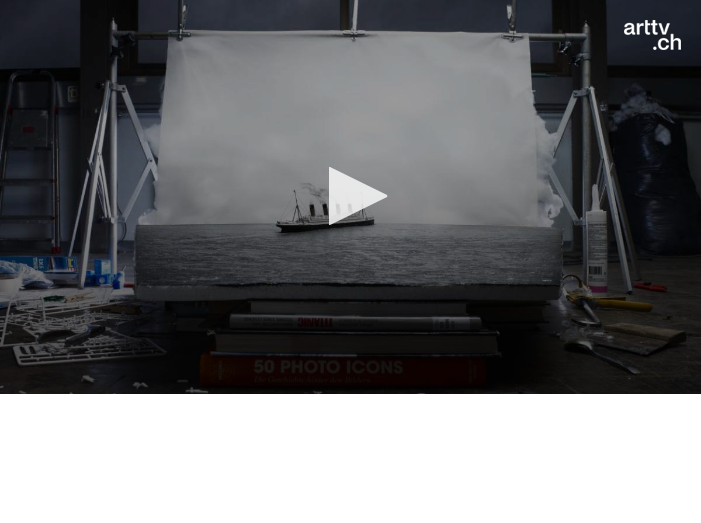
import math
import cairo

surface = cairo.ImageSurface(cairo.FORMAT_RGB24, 701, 523)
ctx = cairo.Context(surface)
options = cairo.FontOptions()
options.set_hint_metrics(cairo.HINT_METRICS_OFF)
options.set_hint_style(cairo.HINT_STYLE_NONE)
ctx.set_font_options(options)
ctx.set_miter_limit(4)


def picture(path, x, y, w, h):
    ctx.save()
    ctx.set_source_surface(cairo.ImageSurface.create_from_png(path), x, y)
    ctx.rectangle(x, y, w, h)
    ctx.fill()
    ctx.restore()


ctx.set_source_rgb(1, 1, 1)
ctx.paint()
picture("img1.png", 0, 0, 701, 394)
picture("img2.png", 624, 20, 57, 30)
ctx.set_source_rgba(1, 1, 1, 0.8)
ctx.new_path()
ctx.move_to(330, 225)
ctx.line_to(329, 225)
ctx.line_to(329, 167)
ctx.line_to(330, 167)
ctx.line_to(387, 195)
ctx.curve_to(387, 196, 388, 196, 387, 197)
ctx.close_path()
ctx.fill()
surface.write_to_png("page.png")
